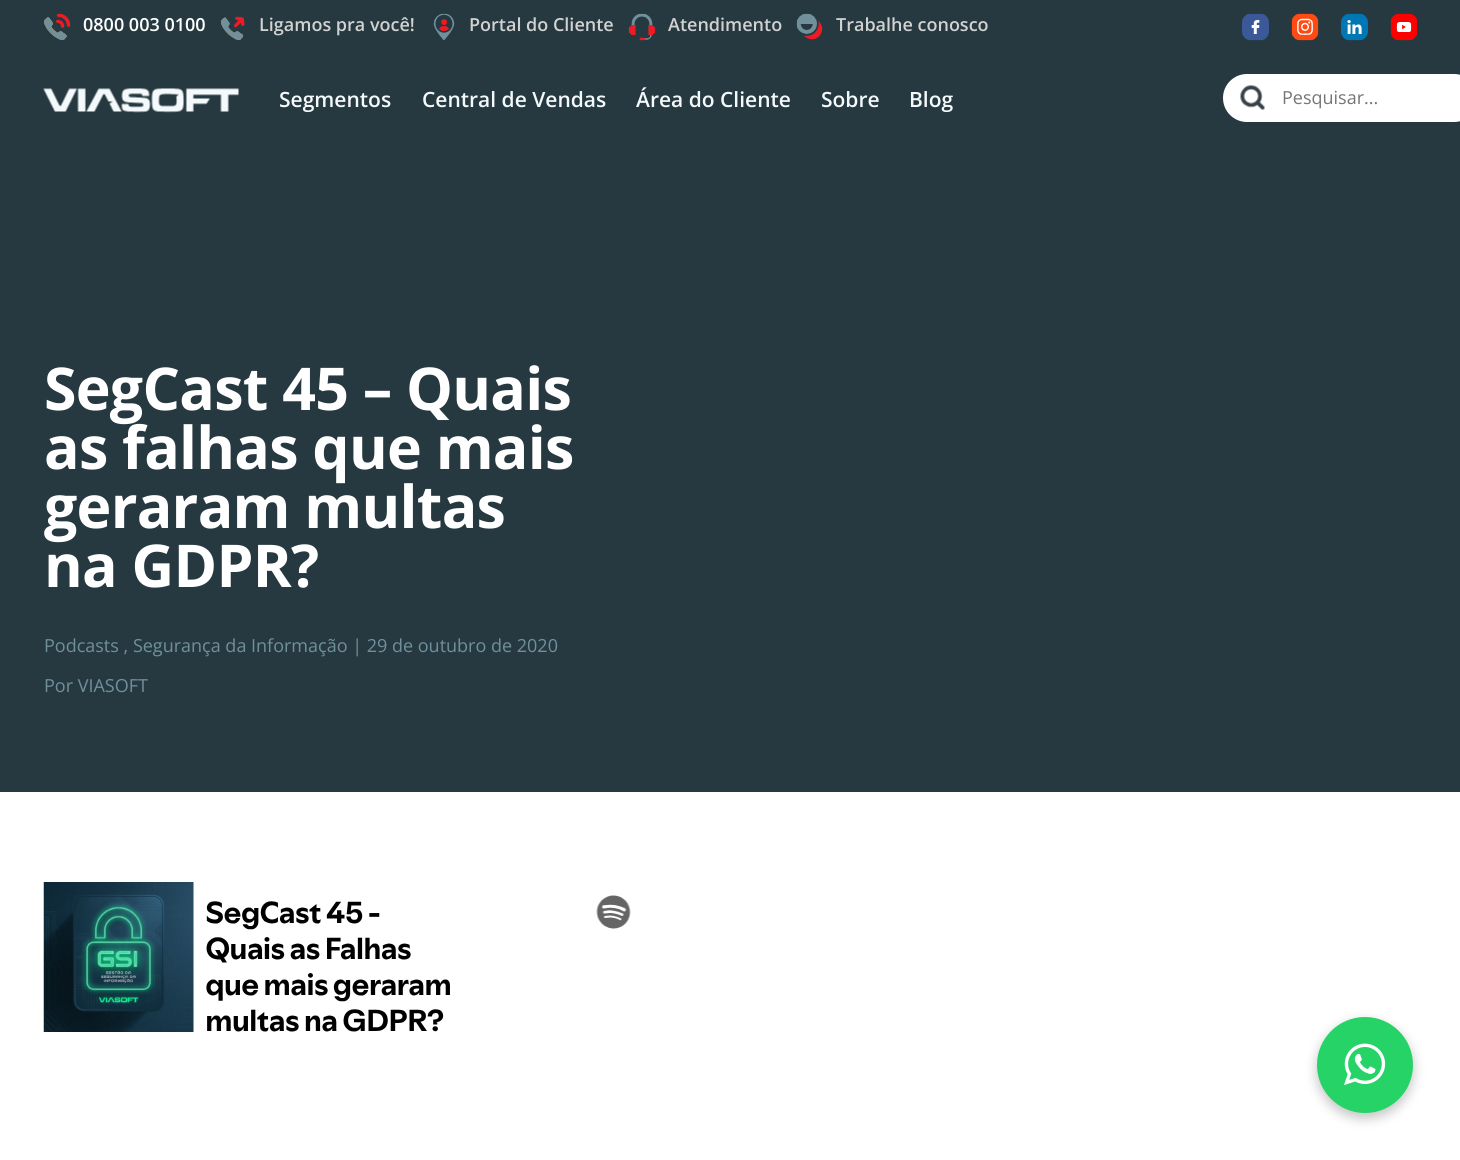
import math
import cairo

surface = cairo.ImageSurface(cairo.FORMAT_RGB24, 1460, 1160)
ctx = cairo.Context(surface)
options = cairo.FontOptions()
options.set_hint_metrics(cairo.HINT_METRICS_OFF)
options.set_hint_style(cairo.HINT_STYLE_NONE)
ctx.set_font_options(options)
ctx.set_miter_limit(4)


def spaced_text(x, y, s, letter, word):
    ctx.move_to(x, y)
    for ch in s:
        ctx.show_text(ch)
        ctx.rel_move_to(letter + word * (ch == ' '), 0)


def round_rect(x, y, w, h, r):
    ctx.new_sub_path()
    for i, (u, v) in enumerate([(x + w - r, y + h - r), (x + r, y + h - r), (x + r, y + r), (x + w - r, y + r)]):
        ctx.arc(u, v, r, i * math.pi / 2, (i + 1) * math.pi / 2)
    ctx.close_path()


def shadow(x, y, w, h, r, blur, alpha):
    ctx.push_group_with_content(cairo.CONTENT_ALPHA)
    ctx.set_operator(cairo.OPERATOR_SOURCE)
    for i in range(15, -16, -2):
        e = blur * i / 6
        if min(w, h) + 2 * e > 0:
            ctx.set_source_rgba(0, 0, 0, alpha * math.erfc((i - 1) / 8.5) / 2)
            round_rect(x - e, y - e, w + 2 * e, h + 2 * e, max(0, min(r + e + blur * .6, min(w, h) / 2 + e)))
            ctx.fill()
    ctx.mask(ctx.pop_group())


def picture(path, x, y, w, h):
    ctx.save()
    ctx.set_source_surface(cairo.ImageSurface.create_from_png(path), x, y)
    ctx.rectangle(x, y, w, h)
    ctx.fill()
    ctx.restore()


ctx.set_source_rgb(1, 1, 1)
ctx.paint()
ctx.set_source_rgb(0.149, 0.224, 0.251)
ctx.rectangle(0, 0, 1460, 792)
ctx.fill()
picture("img1.png", 44, 13, 27, 27)
ctx.select_font_face("Open Sans SemiBold")
ctx.set_font_size(18)
ctx.set_source_rgb(1, 1, 1)
ctx.move_to(83, 31)
ctx.show_text("0800 003 0100")
picture("img2.png", 221, 16, 24, 24)
ctx.set_source_rgb(0.824, 0.824, 0.824)
ctx.move_to(259, 31)
ctx.show_text("Ligamos pra você!")
picture("img3.png", 433, 13, 22, 28)
ctx.move_to(469, 31)
ctx.show_text("Portal do Cliente")
picture("img4.png", 628, 13, 28, 28)
ctx.move_to(668, 31)
ctx.show_text("Atendimento")
picture("img5.png", 796, 13, 27, 27)
ctx.move_to(836, 31)
ctx.show_text("Trabalhe conosco")
picture("img6.png", 1242, 13, 27, 28)
picture("img7.png", 1291, 13, 28, 28)
picture("img8.png", 1341, 13, 27, 28)
picture("img9.png", 1390, 13, 28, 28)
picture("img10.png", 43, 88, 196, 25)
ctx.set_font_size(21)
ctx.set_source_rgb(0.957, 0.976, 0.984)
ctx.move_to(279, 107)
ctx.show_text("Segmentos")
ctx.move_to(422, 107)
ctx.show_text("Central de Vendas")
ctx.move_to(636, 107)
ctx.show_text("Área do Cliente")
ctx.move_to(821, 107)
ctx.show_text("Sobre")
ctx.move_to(909, 107)
ctx.show_text("Blog")
ctx.set_source_rgb(1, 1, 1)
round_rect(1223, 74, 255, 48, 24)
ctx.fill()
picture("img11.png", 1240, 85, 25, 25)
ctx.select_font_face("Open Sans")
ctx.set_font_size(18)
ctx.set_source_rgb(0.459, 0.459, 0.459)
ctx.move_to(1282, 104)
ctx.show_text("Pesquisar...")
ctx.select_font_face("Open Sans", cairo.FONT_SLANT_NORMAL, cairo.FONT_WEIGHT_BOLD)
ctx.set_font_size(59)
ctx.set_source_rgb(1, 1, 1)
spaced_text(44, 410, "SegCast 45 – Quais", -0.75, 0)
spaced_text(44, 469, "as falhas que mais", -0.75, 0)
spaced_text(44, 528, "geraram multas", -0.75, 0)
spaced_text(44, 587, "na GDPR?", -0.75, 0)
ctx.select_font_face("Open Sans")
ctx.set_font_size(18)
ctx.set_source_rgb(0.439, 0.565, 0.608)
ctx.move_to(44, 652)
ctx.show_text("Podcasts , Segurança da Informação | 29 de outubro de 2020")
ctx.move_to(44, 692)
ctx.show_text("Por VIASOFT")
picture("img12.png", 43, 882, 588, 150)
ctx.set_source_rgb(0, 0, 0)
shadow(1317, 1022, 96, 96, 48, 6, 0.24)
ctx.set_source_rgb(0.145, 0.827, 0.4)
ctx.arc(1365, 1065, 48, 0, 2 * math.pi)
ctx.fill()
picture("img13.png", 1344, 1043, 42, 42)
surface.write_to_png("page.png")
